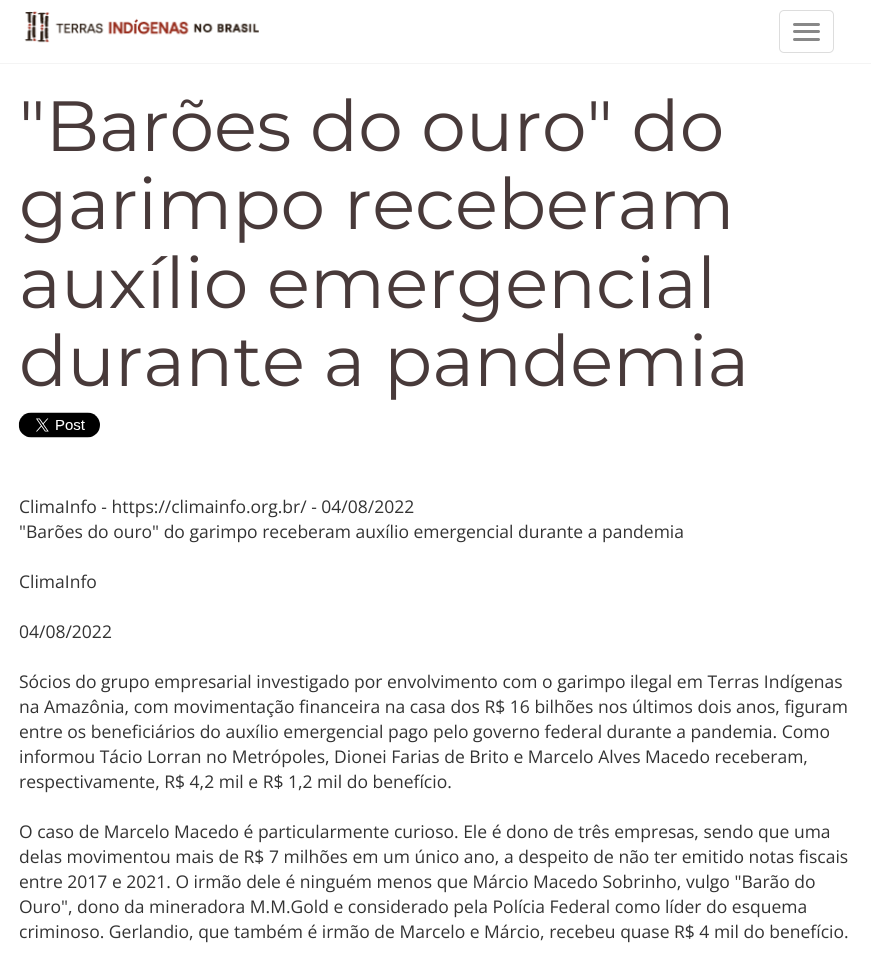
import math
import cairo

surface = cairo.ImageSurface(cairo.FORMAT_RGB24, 871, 957)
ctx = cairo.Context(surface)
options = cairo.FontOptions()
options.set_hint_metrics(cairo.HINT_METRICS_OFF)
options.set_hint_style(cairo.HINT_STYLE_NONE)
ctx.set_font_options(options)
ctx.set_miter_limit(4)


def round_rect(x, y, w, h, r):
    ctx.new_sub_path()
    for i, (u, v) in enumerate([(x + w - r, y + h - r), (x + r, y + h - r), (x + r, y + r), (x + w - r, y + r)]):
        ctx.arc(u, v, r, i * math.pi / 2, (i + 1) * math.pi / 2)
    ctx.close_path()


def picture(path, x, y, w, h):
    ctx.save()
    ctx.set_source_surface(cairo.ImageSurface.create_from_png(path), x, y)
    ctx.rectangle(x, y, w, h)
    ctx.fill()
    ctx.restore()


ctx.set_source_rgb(1, 1, 1)
ctx.paint()
ctx.set_source_rgb(0.957, 0.957, 0.957)
ctx.rectangle(0, 63, 871, 1)
ctx.fill()
picture("img1.png", 24, 11, 235, 32)
round_rect(779.5, 10.5, 54, 42, 4.5)
ctx.set_source_rgb(0.867, 0.867, 0.867)
ctx.set_line_width(1)
ctx.stroke()
ctx.set_source_rgb(0.533, 0.533, 0.533)
round_rect(793, 23, 27, 3, 1.5)
ctx.fill()
round_rect(793, 30, 27, 3, 1.5)
ctx.fill()
round_rect(793, 38, 27, 3, 1.5)
ctx.fill()
ctx.select_font_face("Montserrat Thin")
ctx.set_font_size(71)
ctx.set_source_rgb(0.282, 0.227, 0.227)
ctx.move_to(19, 151)
ctx.show_text("\"Barões do ouro\" do")
ctx.move_to(19, 229)
ctx.show_text("garimpo receberam")
ctx.move_to(19, 308)
ctx.show_text("auxílio emergencial")
ctx.move_to(19, 386)
ctx.show_text("durante a pandemia")
picture("img2.png", 18, 412, 82, 26)
ctx.select_font_face("Open Sans")
ctx.set_font_size(17.5)
ctx.set_source_rgb(0.2, 0.2, 0.2)
ctx.move_to(19, 513)
ctx.show_text("ClimaInfo - https://climainfo.org.br/ - 04/08/2022")
ctx.move_to(19, 538)
ctx.show_text("\"Barões do ouro\" do garimpo receberam auxílio emergencial durante a pandemia")
ctx.move_to(19, 588)
ctx.show_text("ClimaInfo")
ctx.move_to(19, 638)
ctx.show_text("04/08/2022")
ctx.move_to(19, 688)
ctx.show_text("Sócios do grupo empresarial investigado por envolvimento com o garimpo ilegal em Terras Indígenas")
ctx.move_to(19, 713)
ctx.show_text("na Amazônia, com movimentação financeira na casa dos R$ 16 bilhões nos últimos dois anos, figuram")
ctx.move_to(19, 738)
ctx.show_text("entre os beneficiários do auxílio emergencial pago pelo governo federal durante a pandemia. Como")
ctx.move_to(19, 763)
ctx.show_text("informou Tácio Lorran no Metrópoles, Dionei Farias de Brito e Marcelo Alves Macedo receberam,")
ctx.move_to(19, 788)
ctx.show_text("respectivamente, R$ 4,2 mil e R$ 1,2 mil do benefício.")
ctx.move_to(19, 838)
ctx.show_text("O caso de Marcelo Macedo é particularmente curioso. Ele é dono de três empresas, sendo que uma")
ctx.move_to(19, 863)
ctx.show_text("delas movimentou mais de R$ 7 milhões em um único ano, a despeito de não ter emitido notas fiscais")
ctx.move_to(19, 888)
ctx.show_text("entre 2017 e 2021. O irmão dele é ninguém menos que Márcio Macedo Sobrinho, vulgo \"Barão do")
ctx.move_to(19, 913)
ctx.show_text("Ouro\", dono da mineradora M.M.Gold e considerado pela Polícia Federal como líder do esquema")
ctx.move_to(19, 938)
ctx.show_text("criminoso. Gerlandio, que também é irmão de Marcelo e Márcio, recebeu quase R$ 4 mil do benefício.")
surface.write_to_png("page.png")
